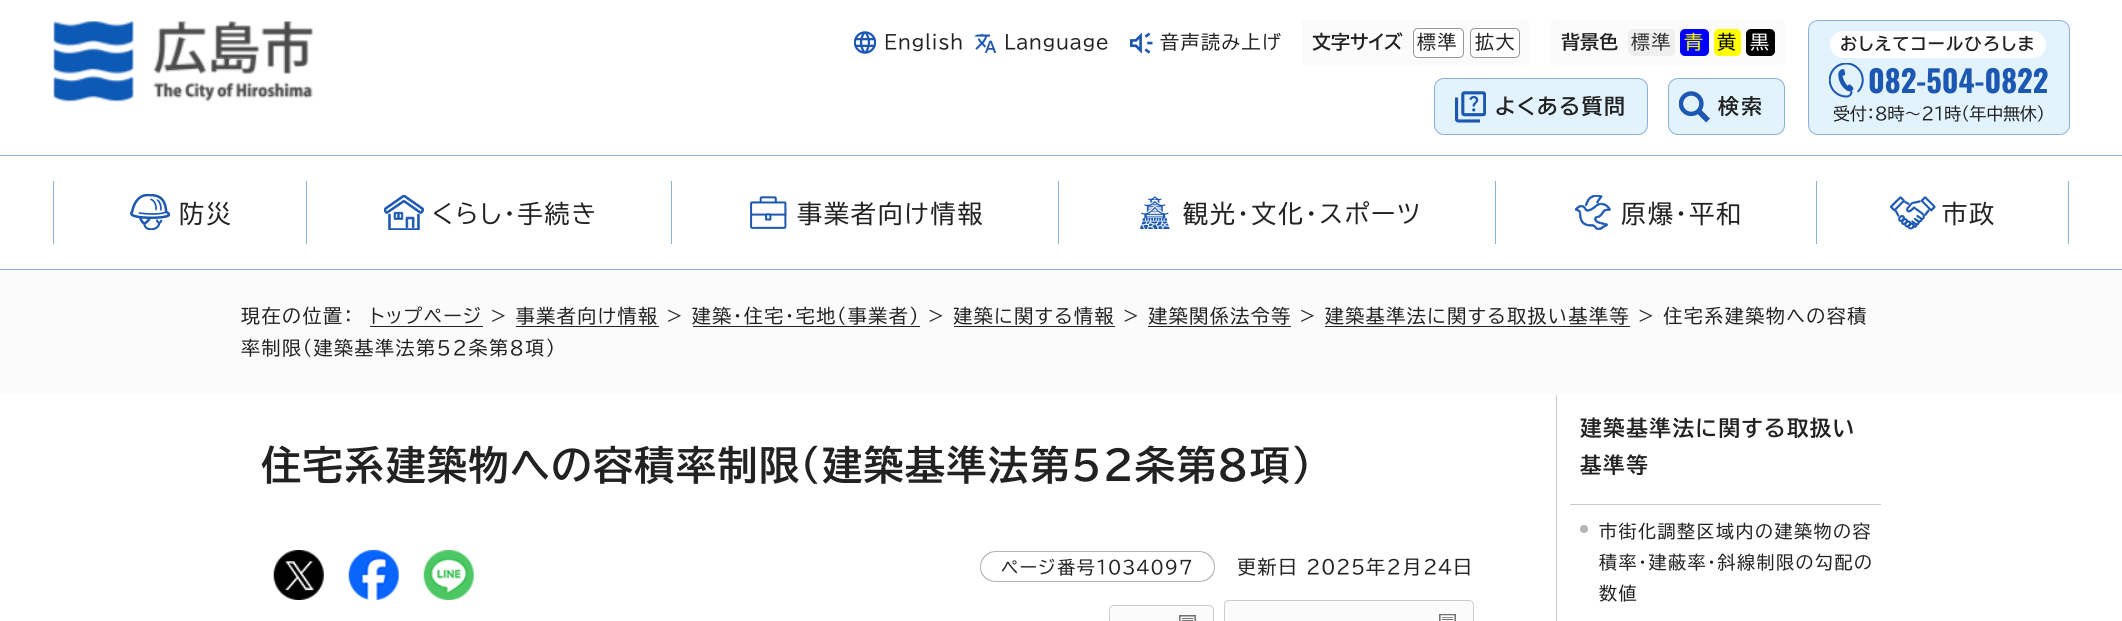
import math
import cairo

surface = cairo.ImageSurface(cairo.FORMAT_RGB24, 2122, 621)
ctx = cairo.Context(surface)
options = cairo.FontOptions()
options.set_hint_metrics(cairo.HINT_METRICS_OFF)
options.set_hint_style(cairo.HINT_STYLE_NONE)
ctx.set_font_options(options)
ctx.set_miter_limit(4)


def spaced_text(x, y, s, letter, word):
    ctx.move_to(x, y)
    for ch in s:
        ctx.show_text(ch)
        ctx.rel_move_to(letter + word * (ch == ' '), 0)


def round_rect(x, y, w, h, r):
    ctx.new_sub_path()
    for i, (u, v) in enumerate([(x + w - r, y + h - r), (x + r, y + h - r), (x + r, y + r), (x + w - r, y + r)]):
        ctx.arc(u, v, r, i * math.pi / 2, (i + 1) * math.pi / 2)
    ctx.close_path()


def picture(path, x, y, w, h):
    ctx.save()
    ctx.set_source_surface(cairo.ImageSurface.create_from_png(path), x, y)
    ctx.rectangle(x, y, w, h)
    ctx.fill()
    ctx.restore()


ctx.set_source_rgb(1, 1, 1)
ctx.paint()
picture("img1.png", 53, 21, 260, 81)
picture("img2.png", 854, 31, 22, 23)
ctx.select_font_face("BIZ UDPGothic")
ctx.set_font_size(19)
ctx.set_source_rgb(0.133, 0.133, 0.133)
spaced_text(884, 49, "English", 0.5, 0)
picture("img3.png", 974, 34, 22, 19)
spaced_text(1004, 49, "Language", 0.5, 0)
picture("img4.png", 1130, 32, 23, 22)
spaced_text(1160, 49, "音声読み上げ", 1.5, 0)
ctx.set_source_rgb(0.984, 0.984, 0.984)
round_rect(1301, 20, 229, 45, 5)
ctx.fill()
ctx.select_font_face("BIZ UDPGothic", cairo.FONT_SLANT_NORMAL, cairo.FONT_WEIGHT_BOLD)
ctx.set_source_rgb(0.133, 0.133, 0.133)
ctx.move_to(1312, 49)
ctx.show_text("文字サイズ")
ctx.set_source_rgb(1, 1, 1)
round_rect(1413.5, 28.5, 50, 29, 4.5)
ctx.fill_preserve()
ctx.set_source_rgb(0.6, 0.6, 0.6)
ctx.set_line_width(1)
ctx.stroke()
ctx.select_font_face("BIZ UDPGothic")
ctx.set_source_rgb(0.133, 0.133, 0.133)
spaced_text(1417, 49, "標準", 1.5, 0)
ctx.set_source_rgb(1, 1, 1)
round_rect(1470.5, 28.5, 49, 29, 4.5)
ctx.fill_preserve()
ctx.set_source_rgb(0.6, 0.6, 0.6)
ctx.stroke()
ctx.set_source_rgb(0.133, 0.133, 0.133)
spaced_text(1475, 49, "拡大", 1.5, 0)
ctx.set_source_rgb(0.984, 0.984, 0.984)
round_rect(1550, 20, 235, 45, 5)
ctx.fill()
ctx.select_font_face("BIZ UDPGothic", cairo.FONT_SLANT_NORMAL, cairo.FONT_WEIGHT_BOLD)
ctx.set_source_rgb(0.133, 0.133, 0.133)
ctx.move_to(1561, 49)
ctx.show_text("背景色")
ctx.set_source_rgb(0.937, 0.937, 0.937)
round_rect(1628, 29, 47, 27, 5)
ctx.fill()
ctx.select_font_face("BIZ UDPGothic")
ctx.set_source_rgb(0.2, 0.2, 0.2)
spaced_text(1631, 49, "標準", 1.5, 0)
ctx.set_source_rgb(0, 0, 1)
round_rect(1680, 29, 29, 27, 5)
ctx.fill()
ctx.set_source_rgb(1, 1, 0)
spaced_text(1684, 49, "青", 1.5, 0)
round_rect(1714, 29, 27, 27, 5)
ctx.fill()
ctx.set_source_rgb(0, 0, 0)
spaced_text(1717, 49, "黄", 1.5, 0)
round_rect(1746, 29, 29, 27, 5)
ctx.fill()
ctx.set_source_rgb(1, 1, 1)
spaced_text(1750, 49, "黒", 1.5, 0)
ctx.set_source_rgb(0.886, 0.953, 0.992)
round_rect(1434, 78, 214, 57, 10)
ctx.fill()
picture("img5.png", 1455, 91, 31, 32)
round_rect(1434.5, 78.5, 213, 56, 9.5)
ctx.set_source_rgb(0.549, 0.69, 0.867)
ctx.stroke()
ctx.select_font_face("BIZ UDPGothic", cairo.FONT_SLANT_NORMAL, cairo.FONT_WEIGHT_BOLD)
ctx.set_font_size(21)
ctx.set_source_rgb(0.133, 0.133, 0.133)
spaced_text(1495, 114, "よくある質問", 1.5, 0)
ctx.set_source_rgb(0.886, 0.953, 0.992)
round_rect(1668, 78, 117, 57, 10)
ctx.fill()
picture("img6.png", 1679, 91, 31, 32)
round_rect(1668.5, 78.5, 116, 56, 9.5)
ctx.set_source_rgb(0.549, 0.69, 0.867)
ctx.stroke()
ctx.set_source_rgb(0.133, 0.133, 0.133)
spaced_text(1718, 114, "検索", 2, 0)
ctx.set_source_rgb(0.886, 0.953, 0.992)
round_rect(1808.5, 20.5, 261, 114, 9.5)
ctx.fill_preserve()
ctx.set_source_rgb(0.549, 0.69, 0.867)
ctx.stroke()
ctx.set_source_rgb(1, 1, 1)
round_rect(1830, 31, 216, 27, 13.5)
ctx.fill()
ctx.set_font_size(17.1)
ctx.set_source_rgb(0.133, 0.133, 0.133)
spaced_text(1840, 50, "おしえてコールひろしま", 1.5, 0)
picture("img7.png", 1829, 63, 35, 35)
ctx.select_font_face("Oswald", cairo.FONT_SLANT_NORMAL, cairo.FONT_WEIGHT_BOLD)
ctx.set_font_size(30.5)
ctx.set_source_rgb(0.11, 0.345, 0.698)
ctx.move_to(1868, 93)
ctx.show_text("082-504-0822")
ctx.select_font_face("BIZ UDPGothic")
ctx.set_font_size(17.1)
ctx.set_source_rgb(0.133, 0.133, 0.133)
spaced_text(1833, 120, "受付：8時～21時（年中無休）", -0.3, 0)
ctx.set_source_rgb(0.549, 0.69, 0.867)
ctx.rectangle(0, 155, 2122, 1)
ctx.fill()
ctx.rectangle(0, 269, 2122, 1)
ctx.fill()
ctx.rectangle(53, 181, 1, 63)
ctx.fill()
picture("img8.png", 130, 194, 40, 36)
ctx.set_font_size(25)
ctx.set_source_rgb(0.133, 0.133, 0.133)
spaced_text(179, 223, "防災", 1.9, 0)
ctx.set_source_rgb(0.549, 0.69, 0.867)
ctx.rectangle(306, 181, 1, 63)
ctx.fill()
picture("img9.png", 384, 195, 40, 35)
ctx.set_source_rgb(0.133, 0.133, 0.133)
spaced_text(432, 223, "くらし・手続き", 1.9, 0)
ctx.set_source_rgb(0.549, 0.69, 0.867)
ctx.rectangle(671, 181, 1, 63)
ctx.fill()
picture("img10.png", 750, 196, 37, 33)
ctx.set_source_rgb(0.133, 0.133, 0.133)
spaced_text(797, 223, "事業者向け情報", 1.9, 0)
ctx.set_source_rgb(0.549, 0.69, 0.867)
ctx.rectangle(1058, 181, 1, 63)
ctx.fill()
picture("img11.png", 1140, 196, 30, 33)
ctx.set_source_rgb(0.133, 0.133, 0.133)
spaced_text(1183, 223, "観光・文化・スポーツ", 1.9, 0)
ctx.set_source_rgb(0.549, 0.69, 0.867)
ctx.rectangle(1495, 181, 1, 63)
ctx.fill()
picture("img12.png", 1575, 195, 36, 35)
ctx.set_source_rgb(0.133, 0.133, 0.133)
spaced_text(1621, 223, "原爆・平和", 1.9, 0)
ctx.set_source_rgb(0.549, 0.69, 0.867)
ctx.rectangle(1816, 181, 1, 63)
ctx.fill()
picture("img13.png", 1890, 196, 46, 34)
ctx.set_source_rgb(0.133, 0.133, 0.133)
spaced_text(1942, 223, "市政", 1.9, 0)
ctx.set_source_rgb(0.549, 0.69, 0.867)
ctx.rectangle(2068, 181, 1, 63)
ctx.fill()
ctx.set_source_rgb(0.984, 0.984, 0.984)
ctx.rectangle(0, 270, 2122, 125)
ctx.fill()
ctx.set_font_size(19)
ctx.set_source_rgb(0.133, 0.133, 0.133)
spaced_text(241, 323, "現在の位置：", 1.5, 0)
spaced_text(370, 323, "トップページ > 事業者向け情報 > 建築・住宅・宅地（事業者） > 建築に関する情報 > 建築関係法令等 > 建築基準法に関する取扱い基準等 > 住宅系建築物への容積", 1.5, 0)
ctx.rectangle(370, 326, 113, 1)
ctx.fill()
ctx.rectangle(516, 326, 143, 1)
ctx.fill()
ctx.rectangle(693, 326, 227, 1)
ctx.fill()
ctx.rectangle(954, 326, 161, 1)
ctx.fill()
ctx.rectangle(1148, 326, 143, 1)
ctx.fill()
ctx.rectangle(1325, 326, 305, 1)
ctx.fill()
spaced_text(241, 355, "率制限（建築基準法第52条第8項）", 1.5, 0)
ctx.select_font_face("BIZ UDPGothic", cairo.FONT_SLANT_NORMAL, cairo.FONT_WEIGHT_BOLD)
ctx.set_font_size(40)
spaced_text(261, 480, "住宅系建築物への容積率制限（建築基準法第52条第8項）", 1.5, 0)
picture("img14.png", 273, 550, 51, 50)
picture("img15.png", 348, 550, 51, 50)
picture("img16.png", 423, 550, 51, 50)
ctx.set_source_rgb(0.706, 0.706, 0.706)
ctx.set_fill_rule(cairo.FILL_RULE_EVEN_ODD)
ctx.new_path()
ctx.move_to(996, 551)
ctx.line_to(1096, 551)
ctx.line_to(1096, 582)
ctx.line_to(996, 582)
ctx.curve_to(987, 582, 980, 576, 980, 567)
ctx.curve_to(980, 558, 987, 551, 996, 551)
ctx.close_path()
ctx.move_to(996, 552)
ctx.line_to(1096, 552)
ctx.line_to(1096, 581)
ctx.line_to(996, 581)
ctx.curve_to(988, 581, 981, 575, 981, 567)
ctx.curve_to(981, 559, 988, 552, 996, 552)
ctx.close_path()
ctx.fill()
ctx.select_font_face("BIZ UDPGothic")
ctx.set_font_size(18)
ctx.set_source_rgb(0.133, 0.133, 0.133)
spaced_text(1001, 574, "ページ番号", 1.5, 0)
ctx.set_source_rgb(0.706, 0.706, 0.706)
ctx.new_path()
ctx.move_to(1096, 551)
ctx.line_to(1199, 551)
ctx.curve_to(1208, 551, 1215, 558, 1215, 567)
ctx.curve_to(1215, 576, 1208, 582, 1199, 582)
ctx.line_to(1096, 582)
ctx.close_path()
ctx.move_to(1096, 552)
ctx.line_to(1199, 552)
ctx.curve_to(1207, 552, 1214, 559, 1214, 567)
ctx.curve_to(1214, 575, 1207, 581, 1199, 581)
ctx.line_to(1096, 581)
ctx.close_path()
ctx.fill()
ctx.set_source_rgb(0.133, 0.133, 0.133)
spaced_text(1096, 574, "1034097", 0.5, 0)
ctx.set_font_size(19)
spaced_text(1237, 574, "更新日", 1.5, 0)
spaced_text(1306, 574, "2025", 0.5, 0)
spaced_text(1366, 574, "年2月", 1.5, 0)
spaced_text(1423, 574, "24", 0.5, 0)
spaced_text(1453, 574, "日", 1.5, 0)
ctx.set_source_rgb(0.984, 0.984, 0.984)
round_rect(1109, 605, 105, 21, 5)
ctx.fill()
picture("img17.png", 1179, 615, 17, 6)
round_rect(1109.5, 605.5, 104, 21, 4.5)
ctx.set_source_rgb(0.8, 0.8, 0.8)
ctx.stroke()
ctx.set_source_rgb(0.984, 0.984, 0.984)
round_rect(1224, 600, 250, 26, 5)
ctx.fill()
picture("img18.png", 1439, 614, 17, 7)
round_rect(1224.5, 600.5, 249, 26, 4.5)
ctx.set_source_rgb(0.8, 0.8, 0.8)
ctx.stroke()
ctx.rectangle(1556, 395, 1, 226)
ctx.fill()
ctx.rectangle(1570, 504, 311, 1)
ctx.fill()
ctx.select_font_face("BIZ UDPGothic", cairo.FONT_SLANT_NORMAL, cairo.FONT_WEIGHT_BOLD)
ctx.set_font_size(21.6)
ctx.set_source_rgb(0.133, 0.133, 0.133)
spaced_text(1580, 436, "建築基準法に関する取扱い", 1.5, 0)
spaced_text(1580, 473, "基準等", 1.5, 0)
ctx.set_source_rgb(0.706, 0.706, 0.706)
ctx.new_path()
ctx.arc(1584, 529, 4, 0, 2 * math.pi)
ctx.fill()
ctx.select_font_face("BIZ UDPGothic")
ctx.set_font_size(18)
ctx.set_source_rgb(0.133, 0.133, 0.133)
spaced_text(1599, 538, "市街化調整区域内の建築物の容", 1.5, 0)
spaced_text(1599, 569, "積率・建蔽率・斜線制限の勾配の", 1.5, 0)
spaced_text(1599, 600, "数値", 1.5, 0)
surface.write_to_png("page.png")
